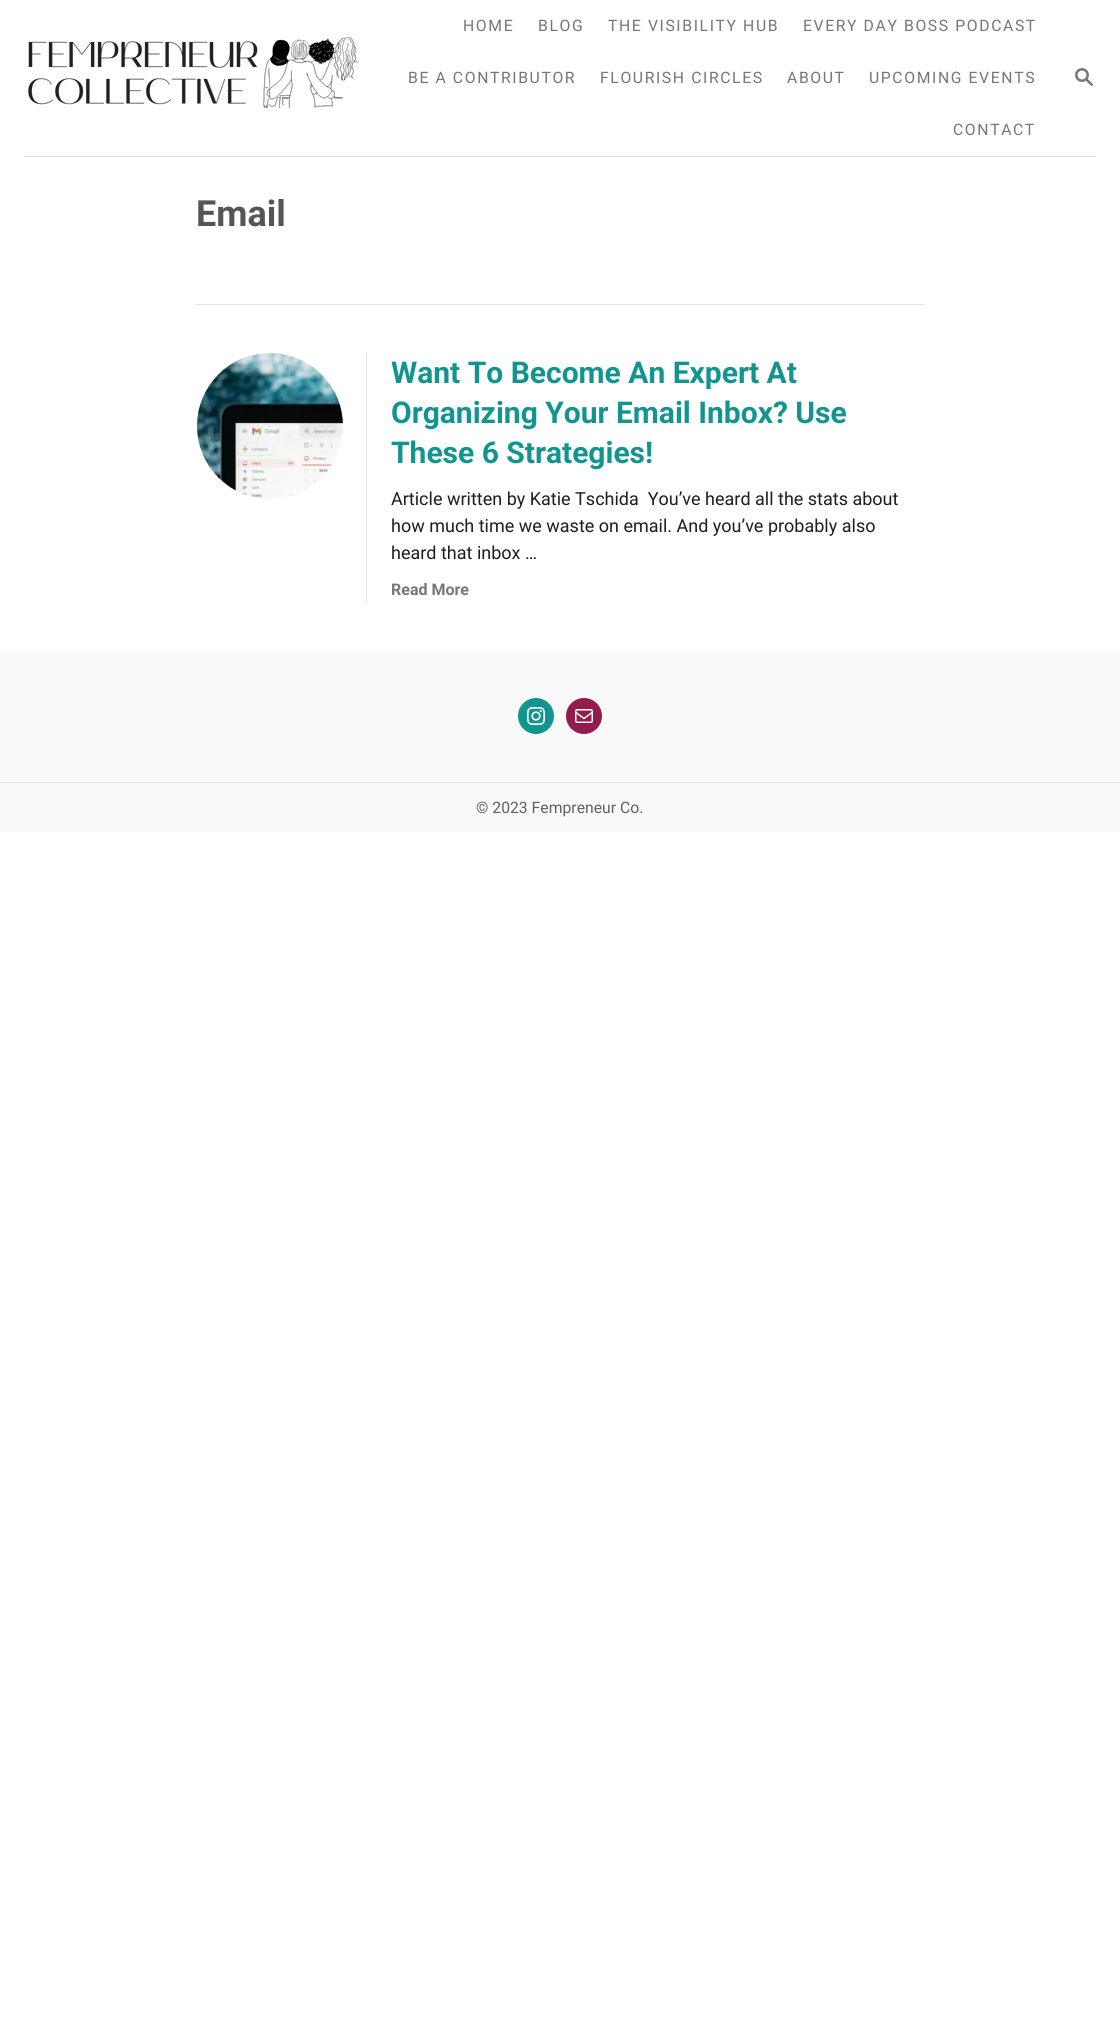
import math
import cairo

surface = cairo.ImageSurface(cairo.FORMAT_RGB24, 1120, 2027)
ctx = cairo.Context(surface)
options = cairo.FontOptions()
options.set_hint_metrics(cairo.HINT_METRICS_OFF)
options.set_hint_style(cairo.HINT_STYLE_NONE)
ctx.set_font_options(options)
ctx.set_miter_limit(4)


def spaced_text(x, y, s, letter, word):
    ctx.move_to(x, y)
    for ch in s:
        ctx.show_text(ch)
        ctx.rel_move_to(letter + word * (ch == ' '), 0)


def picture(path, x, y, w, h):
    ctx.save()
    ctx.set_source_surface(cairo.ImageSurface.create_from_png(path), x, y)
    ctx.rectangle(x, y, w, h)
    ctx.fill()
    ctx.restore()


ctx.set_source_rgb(1, 1, 1)
ctx.paint()
ctx.set_source_rgb(0.882, 0.882, 0.882)
ctx.rectangle(24, 156, 1072, 1)
ctx.fill()
picture("img1.png", 28, 36, 331, 73)
ctx.select_font_face("Roboto")
ctx.set_font_size(15.75)
ctx.set_source_rgb(0.463, 0.463, 0.463)
spaced_text(463, 31, "HOME", 1.6, 0)
spaced_text(538, 31, "BLOG", 1.6, 0)
spaced_text(608, 31, "THE VISIBILITY HUB", 1.6, 0)
spaced_text(803, 31, "EVERY DAY BOSS PODCAST", 1.6, 0)
spaced_text(408, 83, "BE A CONTRIBUTOR", 1.6, 0)
spaced_text(600, 83, "FLOURISH CIRCLES", 1.6, 0)
spaced_text(787, 83, "ABOUT", 1.6, 0)
spaced_text(869, 83, "UPCOMING EVENTS", 1.6, 0)
spaced_text(953, 135, "CONTACT", 1.6, 0)
picture("img2.png", 1075, 68, 18, 18)
ctx.set_source_rgb(0.882, 0.882, 0.882)
ctx.rectangle(196, 304, 728, 1)
ctx.fill()
ctx.select_font_face("Roboto", cairo.FONT_SLANT_NORMAL, cairo.FONT_WEIGHT_BOLD)
ctx.set_font_size(36)
ctx.set_source_rgb(0.333, 0.333, 0.333)
ctx.move_to(196, 226)
ctx.show_text("Email")
ctx.set_source_rgb(0.882, 0.882, 0.882)
ctx.rectangle(366, 353, 1, 249)
ctx.fill()
picture("img3.png", 197, 353, 146, 146)
ctx.set_font_size(30)
ctx.set_source_rgb(0.071, 0.58, 0.565)
ctx.move_to(391, 383)
ctx.show_text("Want To Become An Expert At")
ctx.move_to(391, 423)
ctx.show_text("Organizing Your Email Inbox? Use")
ctx.move_to(391, 463)
ctx.show_text("These 6 Strategies!")
ctx.select_font_face("Roboto")
ctx.set_font_size(18)
ctx.set_source_rgb(0.118, 0.118, 0.118)
ctx.move_to(391, 505)
ctx.show_text("Article written by Katie Tschida  You’ve heard all the stats about")
ctx.move_to(391, 532)
ctx.show_text("how much time we waste on email. And you’ve probably also")
ctx.move_to(391, 559)
ctx.show_text("heard that inbox …")
ctx.select_font_face("Roboto", cairo.FONT_SLANT_NORMAL, cairo.FONT_WEIGHT_BOLD)
ctx.set_font_size(16)
ctx.set_source_rgb(0.463, 0.463, 0.463)
ctx.move_to(391, 595)
ctx.show_text("Read More")
ctx.set_source_rgb(0.98, 0.98, 0.98)
ctx.rectangle(0, 650, 1120, 182)
ctx.fill()
ctx.set_source_rgb(0.071, 0.58, 0.565)
ctx.arc(536, 716, 18, 0, 2 * math.pi)
ctx.fill()
picture("img4.png", 527, 707, 18, 18)
ctx.set_source_rgb(0.58, 0.11, 0.294)
ctx.arc(584, 716, 18, 0, 2 * math.pi)
ctx.fill()
picture("img5.png", 575, 709, 18, 14)
ctx.set_source_rgb(0.882, 0.882, 0.882)
ctx.rectangle(0, 782, 1120, 1)
ctx.fill()
ctx.select_font_face("Roboto")
ctx.set_font_size(15.75)
ctx.set_source_rgb(0.376, 0.376, 0.376)
ctx.move_to(476, 813)
ctx.show_text("© 2023 Fempreneur Co.")
surface.write_to_png("page.png")
